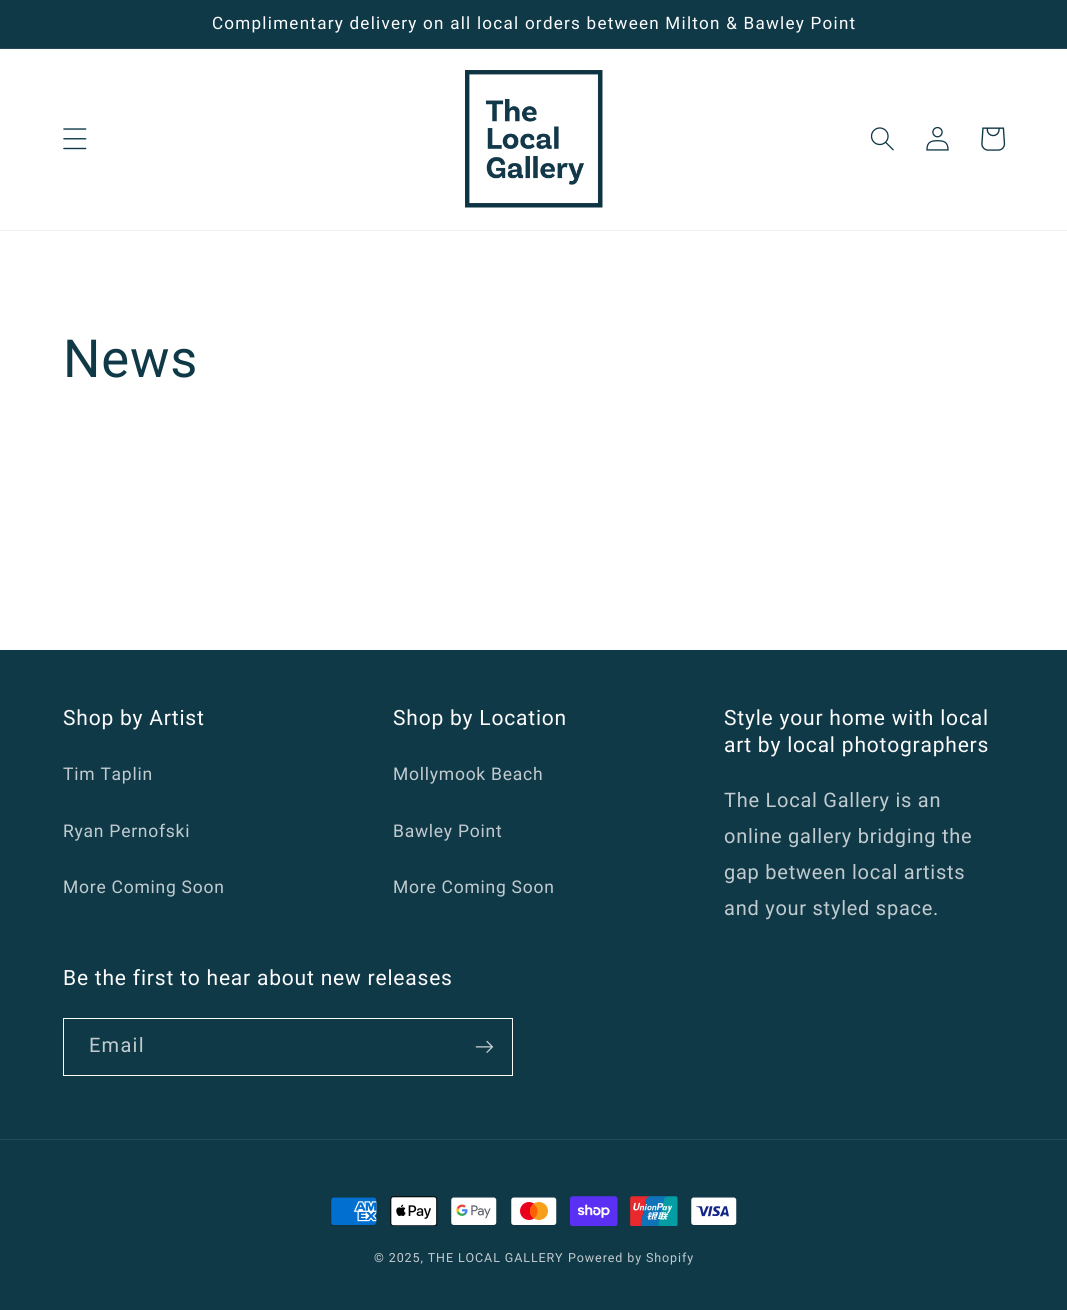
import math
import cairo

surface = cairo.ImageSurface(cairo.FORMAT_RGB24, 1067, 1310)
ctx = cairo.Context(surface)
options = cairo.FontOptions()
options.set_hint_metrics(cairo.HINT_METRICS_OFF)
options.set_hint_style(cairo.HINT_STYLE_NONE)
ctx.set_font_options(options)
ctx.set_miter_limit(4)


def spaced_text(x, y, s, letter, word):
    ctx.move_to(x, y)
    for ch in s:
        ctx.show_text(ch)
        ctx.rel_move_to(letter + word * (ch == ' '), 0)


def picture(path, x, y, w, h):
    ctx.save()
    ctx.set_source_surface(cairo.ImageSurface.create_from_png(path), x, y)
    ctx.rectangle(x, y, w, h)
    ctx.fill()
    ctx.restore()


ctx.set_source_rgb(1, 1, 1)
ctx.paint()
ctx.set_source_rgb(0.063, 0.224, 0.282)
ctx.rectangle(0, 0, 1067, 48)
ctx.fill()
ctx.set_source_rgb(0.137, 0.286, 0.337)
ctx.rectangle(0, 48, 1067, 1)
ctx.fill()
ctx.select_font_face("Roboto")
ctx.set_font_size(17.05)
ctx.set_source_rgb(0.988, 0.988, 0.988)
spaced_text(212, 29, "Complimentary delivery on all local orders between Milton & Bawley Point", 1.25, 0)
ctx.set_source_rgb(0.925, 0.937, 0.941)
ctx.rectangle(0, 230, 1067, 1)
ctx.fill()
picture("img1.png", 63, 128, 24, 22)
picture("img2.png", 465, 70, 138, 138)
picture("img3.png", 870, 127, 24, 24)
picture("img4.png", 926, 126, 23, 25)
picture("img5.png", 981, 127, 25, 24)
ctx.set_font_size(52.5)
ctx.set_source_rgb(0.063, 0.224, 0.282)
spaced_text(63, 377, "News", 0.8, 0)
ctx.rectangle(0, 650, 1067, 660)
ctx.fill()
ctx.set_font_size(21)
ctx.set_source_rgb(0.988, 0.988, 0.988)
spaced_text(63, 725, "Shop by Artist", 0.8, 0)
ctx.set_font_size(17.5)
ctx.set_source_rgb(0.757, 0.796, 0.812)
spaced_text(63, 780, "Tim Taplin", 0.75, 0)
spaced_text(63, 837, "Ryan Pernofski", 0.75, 0)
spaced_text(63, 893, "More Coming Soon", 0.75, 0)
ctx.set_font_size(21)
ctx.set_source_rgb(0.988, 0.988, 0.988)
spaced_text(393, 725, "Shop by Location", 0.8, 0)
ctx.set_font_size(17.5)
ctx.set_source_rgb(0.757, 0.796, 0.812)
spaced_text(393, 780, "Mollymook Beach", 0.75, 0)
spaced_text(393, 837, "Bawley Point", 0.75, 0)
spaced_text(393, 893, "More Coming Soon", 0.75, 0)
ctx.set_font_size(21)
ctx.set_source_rgb(0.988, 0.988, 0.988)
spaced_text(724, 725, "Style your home with local", 0.8, 0)
spaced_text(724, 752, "art by local photographers", 0.8, 0)
ctx.set_font_size(20)
ctx.set_source_rgb(0.757, 0.796, 0.812)
spaced_text(724, 807, "The Local Gallery is an", 0.75, 0)
spaced_text(724, 843, "online gallery bridging the", 0.75, 0)
spaced_text(724, 879, "gap between local artists", 0.75, 0)
spaced_text(724, 915, "and your styled space.", 0.75, 0)
ctx.set_font_size(21)
ctx.set_source_rgb(0.988, 0.988, 0.988)
spaced_text(63, 985, "Be the first to hear about new releases", 0.8, 0)
ctx.rectangle(63.5, 1018.5, 449, 57)
ctx.set_line_width(1)
ctx.stroke()
ctx.set_font_size(20)
ctx.set_source_rgb(0.757, 0.796, 0.812)
spaced_text(89, 1052, "Email", 1.25, 0)
picture("img6.png", 475, 1040, 18, 13)
ctx.set_source_rgb(0.137, 0.286, 0.337)
ctx.rectangle(0, 1139, 1067, 1)
ctx.fill()
picture("img7.png", 330, 1197, 47, 29)
picture("img8.png", 390, 1196, 48, 30)
picture("img9.png", 450, 1197, 47, 29)
picture("img10.png", 510, 1197, 47, 29)
picture("img11.png", 570, 1196, 48, 30)
picture("img12.png", 630, 1196, 48, 30)
picture("img13.png", 690, 1197, 47, 29)
ctx.set_font_size(12.5)
ctx.set_source_rgb(0.757, 0.796, 0.812)
spaced_text(374, 1262, "© 2025, THE LOCAL GALLERY", 0.9, 0)
spaced_text(568, 1262, "Powered by Shopify", 0.9, 0)
surface.write_to_png("page.png")
